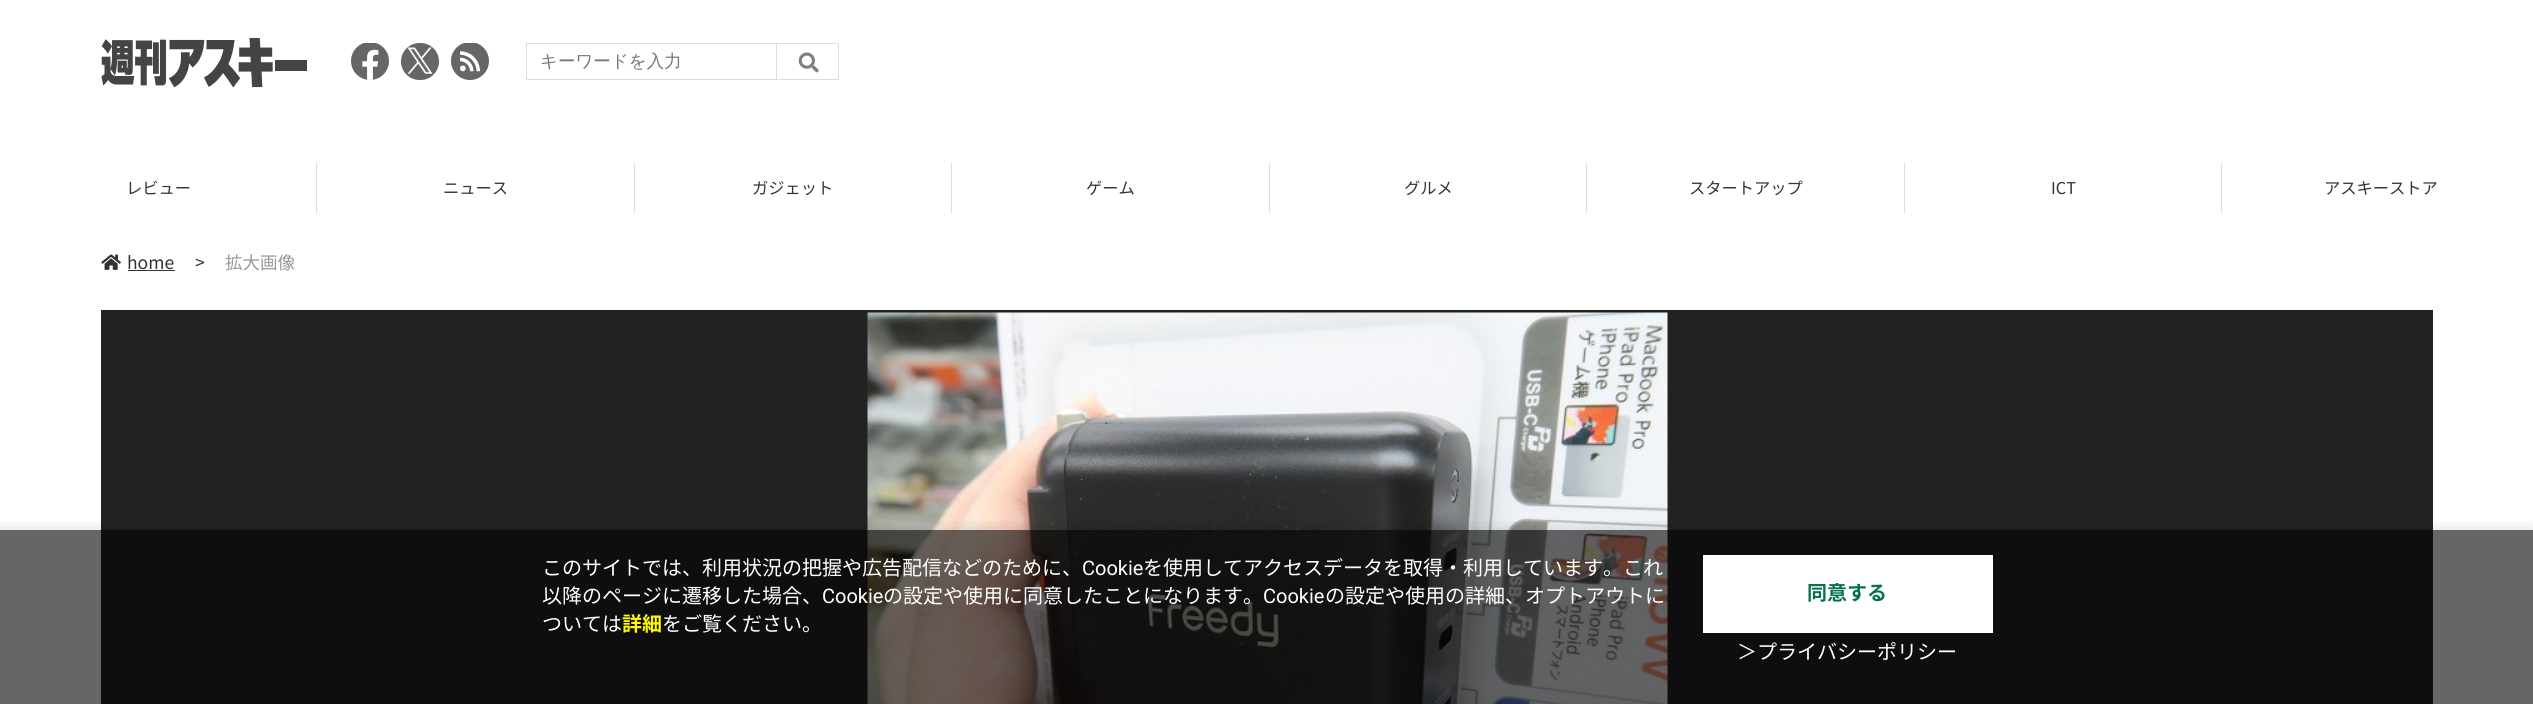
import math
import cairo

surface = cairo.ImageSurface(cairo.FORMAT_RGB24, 2533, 704)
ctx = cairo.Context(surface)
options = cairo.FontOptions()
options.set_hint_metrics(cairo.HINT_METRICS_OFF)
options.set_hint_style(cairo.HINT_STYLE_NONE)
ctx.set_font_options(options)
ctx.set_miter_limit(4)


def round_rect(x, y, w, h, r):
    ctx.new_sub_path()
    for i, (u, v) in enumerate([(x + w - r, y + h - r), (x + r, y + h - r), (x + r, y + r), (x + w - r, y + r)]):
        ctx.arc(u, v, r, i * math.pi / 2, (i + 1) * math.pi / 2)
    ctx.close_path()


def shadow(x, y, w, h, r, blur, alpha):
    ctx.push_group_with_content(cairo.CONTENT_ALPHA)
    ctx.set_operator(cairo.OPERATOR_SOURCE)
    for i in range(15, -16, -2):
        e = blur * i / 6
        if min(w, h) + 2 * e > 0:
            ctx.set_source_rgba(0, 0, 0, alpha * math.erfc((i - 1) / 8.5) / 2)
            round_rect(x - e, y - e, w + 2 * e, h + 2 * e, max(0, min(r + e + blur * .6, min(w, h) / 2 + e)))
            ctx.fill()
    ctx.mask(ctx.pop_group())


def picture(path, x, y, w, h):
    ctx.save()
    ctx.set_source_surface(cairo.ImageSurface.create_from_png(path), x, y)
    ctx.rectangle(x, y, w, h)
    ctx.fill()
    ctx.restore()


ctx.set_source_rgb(1, 1, 1)
ctx.paint()
picture("img1.png", 101, 38, 206, 50)
picture("img2.png", 351, 43, 38, 37)
ctx.set_source_rgb(0.4, 0.4, 0.4)
round_rect(401, 43, 38, 37, 18.5)
ctx.fill()
picture("img3.png", 407, 47, 26, 27)
picture("img4.png", 451, 43, 38, 37)
ctx.set_source_rgb(0.867, 0.867, 0.867)
ctx.rectangle(526, 43, 250, 1)
ctx.fill()
ctx.rectangle(526, 79, 250, 1)
ctx.fill()
ctx.rectangle(526, 43, 1, 37)
ctx.fill()
ctx.select_font_face("WenQuanYi Zen Hei Medium")
ctx.set_font_size(17.5)
ctx.set_source_rgb(0.459, 0.459, 0.459)
ctx.move_to(540, 67)
ctx.show_text("キーワードを入力")
ctx.rectangle(776.5, 43.5, 62, 36)
ctx.set_source_rgb(0.867, 0.867, 0.867)
ctx.set_line_width(1)
ctx.stroke()
picture("img5.png", 798, 52, 21, 21)
ctx.rectangle(316, 163, 1, 50)
ctx.fill()
ctx.select_font_face("Noto Sans JP Thin")
ctx.set_font_size(16.25)
ctx.set_source_rgb(0.2, 0.2, 0.2)
ctx.move_to(126, 194)
ctx.show_text("レビュー")
ctx.set_source_rgb(0.867, 0.867, 0.867)
ctx.rectangle(634, 163, 1, 50)
ctx.fill()
ctx.set_source_rgb(0.2, 0.2, 0.2)
ctx.move_to(443, 194)
ctx.show_text("ニュース")
ctx.set_source_rgb(0.867, 0.867, 0.867)
ctx.rectangle(951, 163, 1, 50)
ctx.fill()
ctx.set_source_rgb(0.2, 0.2, 0.2)
ctx.move_to(752, 194)
ctx.show_text("ガジェット")
ctx.set_source_rgb(0.867, 0.867, 0.867)
ctx.rectangle(1269, 163, 1, 50)
ctx.fill()
ctx.set_source_rgb(0.2, 0.2, 0.2)
ctx.move_to(1086, 194)
ctx.show_text("ゲーム")
ctx.set_source_rgb(0.867, 0.867, 0.867)
ctx.rectangle(1586, 163, 1, 50)
ctx.fill()
ctx.set_source_rgb(0.2, 0.2, 0.2)
ctx.move_to(1404, 194)
ctx.show_text("グルメ")
ctx.set_source_rgb(0.867, 0.867, 0.867)
ctx.rectangle(1904, 163, 1, 50)
ctx.fill()
ctx.set_source_rgb(0.2, 0.2, 0.2)
ctx.move_to(1689, 194)
ctx.show_text("スタートアップ")
ctx.set_source_rgb(0.867, 0.867, 0.867)
ctx.rectangle(2221, 163, 1, 50)
ctx.fill()
ctx.set_source_rgb(0.2, 0.2, 0.2)
ctx.move_to(2051, 194)
ctx.show_text("ICT")
ctx.move_to(2324, 194)
ctx.show_text("アスキーストア")
picture("img6.png", 101, 254, 20, 16)
ctx.set_font_size(17.5)
ctx.move_to(127, 269)
ctx.show_text("home")
ctx.rectangle(128, 270, 47, 1)
ctx.fill()
ctx.move_to(195, 269)
ctx.show_text(">")
ctx.set_source_rgb(0.6, 0.6, 0.6)
ctx.move_to(225, 269)
ctx.show_text("拡大画像")
ctx.set_source_rgb(0.133, 0.133, 0.133)
ctx.rectangle(101, 310, 2332, 394)
ctx.fill()
picture("img7.png", 867, 312, 801, 392)
ctx.save()
ctx.rectangle(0, 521, 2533, 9)
ctx.clip()
ctx.set_source_rgb(0, 0, 0)
shadow(0, 526, 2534, 175, 0, 6, 0.1)
ctx.restore()
ctx.set_source_rgba(0, 0, 0, 0.6)
ctx.rectangle(0, 530, 2533, 174)
ctx.fill()
ctx.set_font_size(20)
ctx.set_source_rgb(1, 1, 1)
ctx.move_to(542, 575)
ctx.show_text("このサイトでは、利用状況の把握や広告配信などのために、")
ctx.select_font_face("Roboto")
ctx.move_to(1082, 575)
ctx.show_text("Cookie")
ctx.select_font_face("Noto Sans JP Thin")
ctx.move_to(1143, 575)
ctx.show_text("を使用してアクセスデータを取得・利用しています。これ")
ctx.move_to(542, 603)
ctx.show_text("以降のページに遷移した場合、")
ctx.select_font_face("Roboto")
ctx.move_to(822, 603)
ctx.show_text("Cookie")
ctx.select_font_face("Noto Sans JP Thin")
ctx.move_to(883, 603)
ctx.show_text("の設定や使用に同意したことになります。")
ctx.select_font_face("Roboto")
ctx.move_to(1263, 603)
ctx.show_text("Cookie")
ctx.select_font_face("Noto Sans JP Thin")
ctx.move_to(1325, 603)
ctx.show_text("の設定や使用の詳細、オプトアウトに")
ctx.move_to(542, 631)
ctx.show_text("ついては")
ctx.select_font_face("Noto Sans JP", cairo.FONT_SLANT_NORMAL, cairo.FONT_WEIGHT_BOLD)
ctx.set_source_rgb(1, 0.98, 0)
ctx.move_to(622, 631)
ctx.show_text("詳細")
ctx.select_font_face("Noto Sans JP Thin")
ctx.set_source_rgb(1, 1, 1)
ctx.move_to(662, 631)
ctx.show_text("をご覧ください。")
ctx.rectangle(1703, 555, 290, 78)
ctx.fill()
ctx.select_font_face("Noto Sans JP", cairo.FONT_SLANT_NORMAL, cairo.FONT_WEIGHT_BOLD)
ctx.set_source_rgb(0.02, 0.447, 0.294)
ctx.move_to(1807, 600)
ctx.show_text("同意する")
ctx.select_font_face("Noto Sans JP Thin")
ctx.set_source_rgb(1, 1, 1)
ctx.move_to(1737, 659)
ctx.show_text("＞プライバシーポリシー")
surface.write_to_png("page.png")
